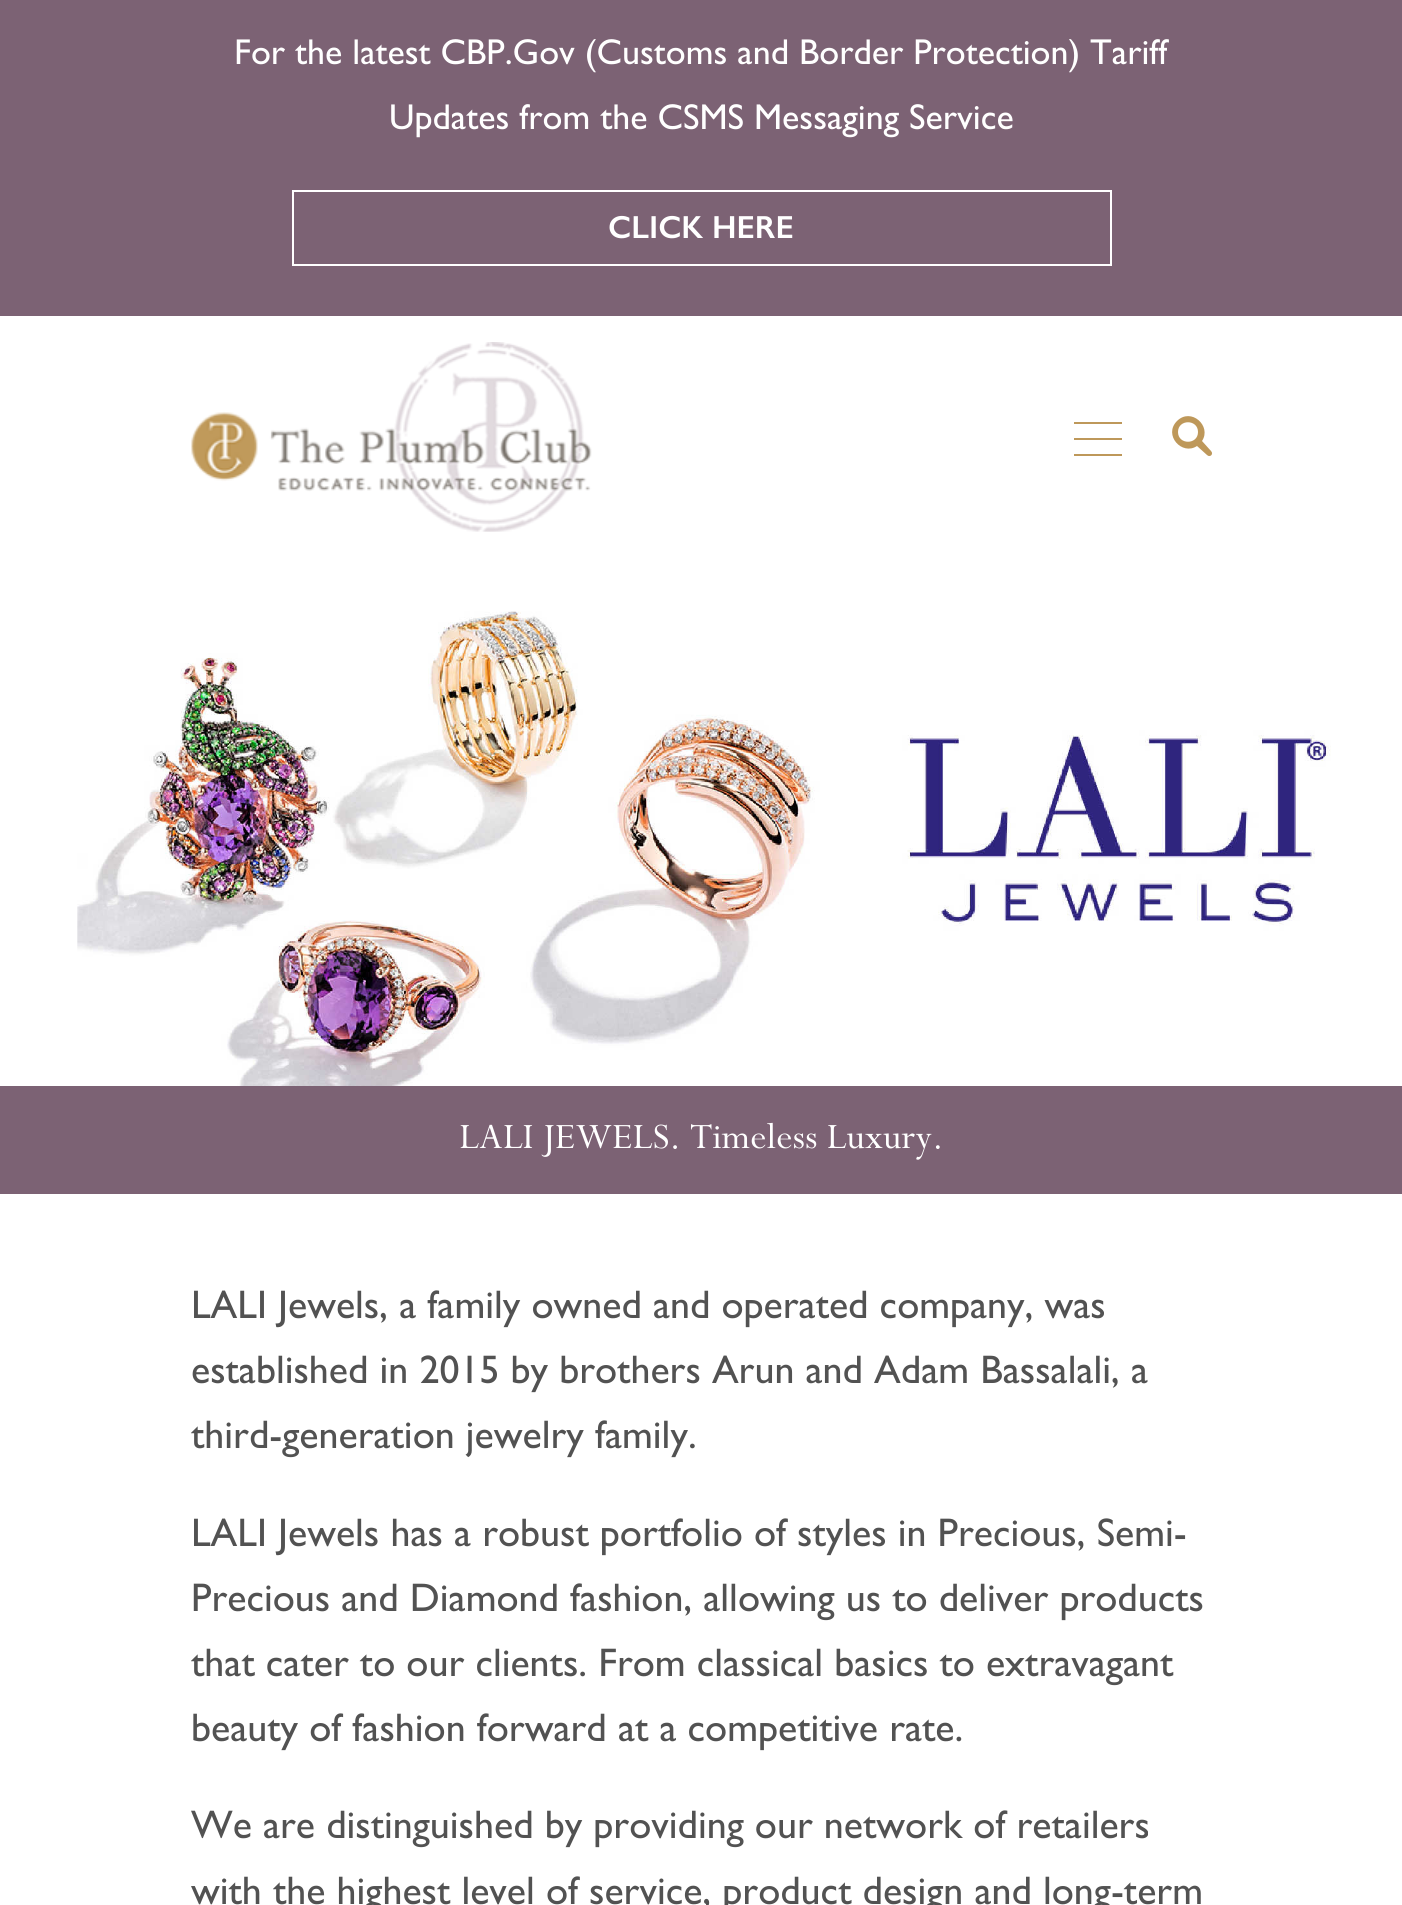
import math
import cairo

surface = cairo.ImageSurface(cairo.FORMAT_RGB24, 1402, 1905)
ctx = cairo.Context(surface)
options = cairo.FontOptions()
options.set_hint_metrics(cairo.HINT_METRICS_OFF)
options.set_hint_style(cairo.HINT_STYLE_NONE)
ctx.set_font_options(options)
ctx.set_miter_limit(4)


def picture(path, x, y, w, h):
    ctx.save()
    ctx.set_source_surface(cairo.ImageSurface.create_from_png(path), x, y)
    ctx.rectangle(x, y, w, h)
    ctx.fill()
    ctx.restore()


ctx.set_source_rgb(1, 1, 1)
ctx.paint()
ctx.set_source_rgb(0.486, 0.384, 0.455)
ctx.rectangle(0, 0, 1402, 316)
ctx.fill()
ctx.select_font_face("Gill Sans")
ctx.set_font_size(36)
ctx.set_source_rgb(1, 1, 1)
ctx.move_to(234, 64)
ctx.show_text("For the latest CBP.Gov (Customs and Border Protection) Tariff")
ctx.move_to(389, 129)
ctx.show_text("Updates from the CSMS Messaging Service")
ctx.rectangle(293, 191, 818, 74)
ctx.stroke()
ctx.select_font_face("Gill Sans SemiBold")
ctx.set_font_size(32)
ctx.move_to(608, 238)
ctx.show_text("CLICK HERE")
picture("img1.png", 191, 342, 401, 190)
ctx.set_source_rgb(0.745, 0.596, 0.353)
ctx.rectangle(1074, 454, 48, 2)
ctx.fill()
ctx.rectangle(1074, 422, 48, 2)
ctx.fill()
ctx.rectangle(1074, 438, 48, 2)
ctx.fill()
ctx.new_path()
ctx.move_to(1211, 451)
ctx.line_to(1202, 441)
ctx.curve_to(1212, 426, 1191, 407, 1177, 421)
ctx.curve_to(1163, 435, 1182, 456, 1197, 446)
ctx.line_to(1207, 455)
ctx.curve_to(1210, 458, 1214, 454, 1211, 451)
ctx.close_path()
ctx.move_to(1178, 432)
ctx.curve_to(1178, 419, 1198, 419, 1198, 432)
ctx.curve_to(1198, 445, 1178, 445, 1178, 432)
ctx.close_path()
ctx.fill()
picture("img2.png", 77, 611, 1254, 475)
ctx.set_source_rgb(0.486, 0.384, 0.455)
ctx.rectangle(0, 1086, 1402, 108)
ctx.fill()
ctx.select_font_face("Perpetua")
ctx.set_font_size(40)
ctx.set_source_rgb(1, 1, 1)
ctx.move_to(459, 1148)
ctx.show_text("LALI JEWELS. Timeless Luxury.")
ctx.select_font_face("Gill Sans")
ctx.set_source_rgb(0.322, 0.322, 0.322)
ctx.move_to(191, 1318)
ctx.show_text("LALI Jewels, a family owned and operated company, was")
ctx.move_to(191, 1383)
ctx.show_text("established in 2015 by brothers Arun and Adam Bassalali, a")
ctx.move_to(191, 1448)
ctx.show_text("third-generation jewelry family.")
ctx.move_to(191, 1546)
ctx.show_text("LALI Jewels has a robust portfolio of styles in Precious, Semi-")
ctx.move_to(191, 1611)
ctx.show_text("Precious and Diamond fashion, allowing us to deliver products")
ctx.move_to(191, 1676)
ctx.show_text("that cater to our clients. From classical basics to extravagant")
ctx.move_to(191, 1741)
ctx.show_text("beauty of fashion forward at a competitive rate.")
ctx.move_to(191, 1838)
ctx.show_text("We are distinguished by providing our network of retailers")
ctx.move_to(191, 1904)
ctx.show_text("with the highest level of service, product design and long-term")
surface.write_to_png("page.png")
